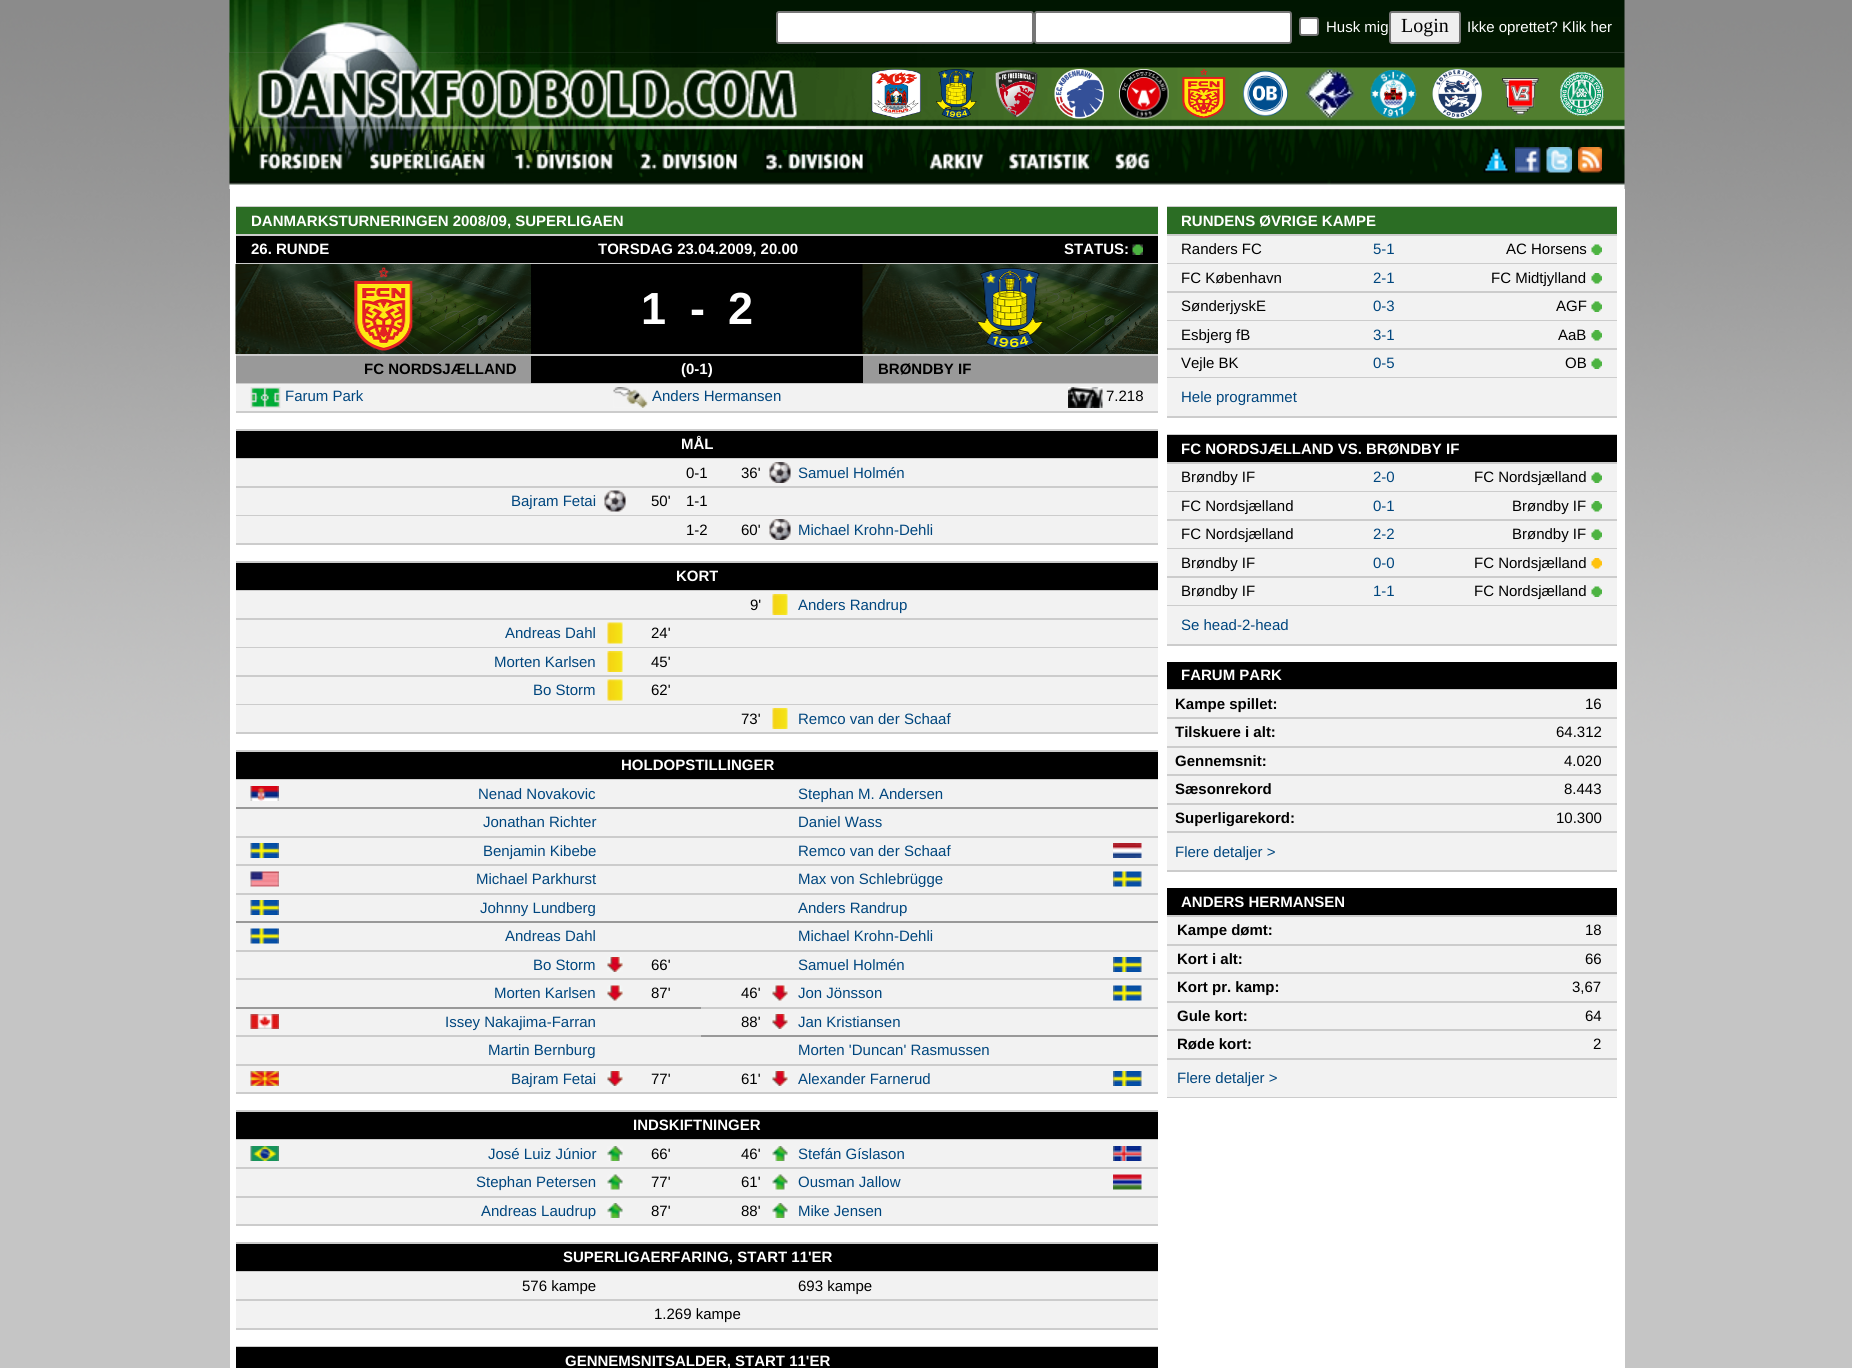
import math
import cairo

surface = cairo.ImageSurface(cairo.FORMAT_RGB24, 1852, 1368)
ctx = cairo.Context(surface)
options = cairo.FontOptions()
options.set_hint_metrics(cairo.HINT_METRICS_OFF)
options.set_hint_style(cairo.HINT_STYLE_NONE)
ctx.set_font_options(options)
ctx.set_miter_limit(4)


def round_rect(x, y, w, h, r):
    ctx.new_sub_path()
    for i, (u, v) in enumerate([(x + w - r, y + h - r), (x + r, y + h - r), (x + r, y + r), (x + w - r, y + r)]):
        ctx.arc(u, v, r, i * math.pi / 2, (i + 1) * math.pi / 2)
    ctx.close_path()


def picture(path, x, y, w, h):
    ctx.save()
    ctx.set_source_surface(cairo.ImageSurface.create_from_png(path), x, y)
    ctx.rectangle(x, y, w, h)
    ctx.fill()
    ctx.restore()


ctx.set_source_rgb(1, 1, 1)
ctx.paint()
picture("img1.png", 0, 0, 1852, 1368)
picture("img2.png", 229, 0, 1396, 53)
ctx.set_source_rgb(1, 1, 1)
round_rect(777, 12, 256, 31, 2)
ctx.fill_preserve()
ctx.set_source_rgb(0.463, 0.463, 0.463)
ctx.stroke()
ctx.set_source_rgb(1, 1, 1)
round_rect(1035, 12, 256, 31, 2)
ctx.fill_preserve()
ctx.set_source_rgb(0.463, 0.463, 0.463)
ctx.stroke()
ctx.set_source_rgb(1, 1, 1)
round_rect(1300, 18, 18, 17, 2)
ctx.fill_preserve()
ctx.set_source_rgb(0.463, 0.463, 0.463)
ctx.stroke()
ctx.select_font_face("Liberation Sans")
ctx.set_font_size(15)
ctx.set_source_rgb(1, 1, 1)
ctx.move_to(1326, 32)
ctx.show_text("Husk mig")
ctx.set_source_rgb(0.937, 0.937, 0.937)
round_rect(1390, 12, 70, 31, 2)
ctx.fill_preserve()
ctx.set_source_rgb(0.463, 0.463, 0.463)
ctx.stroke()
ctx.select_font_face("Liberation Serif")
ctx.set_font_size(20)
ctx.set_source_rgb(0, 0, 0)
ctx.move_to(1401, 32)
ctx.show_text("Login")
ctx.select_font_face("Liberation Sans")
ctx.set_font_size(15)
ctx.set_source_rgb(1, 1, 1)
ctx.move_to(1467, 32)
ctx.show_text("Ikke oprettet? Klik her")
picture("img3.png", 229, 52, 1396, 76)
picture("img17.png", 229, 127, 1396, 62)
picture("img4.png", 229, 52, 587, 76)
picture("img5.png", 871, 69, 50, 50)
picture("img6.png", 936, 69, 41, 50)
picture("img7.png", 995, 69, 43, 49)
picture("img8.png", 1054, 69, 50, 50)
picture("img9.png", 1119, 69, 50, 50)
picture("img10.png", 1182, 69, 44, 50)
picture("img11.png", 1243, 70, 45, 47)
picture("img12.png", 1305, 69, 50, 50)
picture("img13.png", 1370, 70, 47, 49)
picture("img14.png", 1432, 69, 50, 50)
picture("img15.png", 1502, 77, 37, 39)
picture("img16.png", 1560, 72, 44, 44)
picture("img18.png", 259, 150, 86, 23)
picture("img19.png", 369, 150, 119, 23)
picture("img20.png", 511, 150, 104, 23)
picture("img21.png", 637, 150, 102, 23)
picture("img22.png", 763, 150, 104, 23)
picture("img23.png", 927, 150, 60, 23)
picture("img24.png", 1009, 150, 83, 23)
picture("img25.png", 1115, 150, 37, 20)
picture("img26.png", 1483, 147, 26, 26)
picture("img27.png", 1515, 147, 26, 26)
picture("img28.png", 1546, 147, 26, 26)
picture("img29.png", 1578, 147, 24, 26)
ctx.rectangle(230, 189, 1395, 1179)
ctx.fill()
ctx.set_source_rgb(0.8, 0.8, 0.8)
ctx.rectangle(236, 206, 922, 1)
ctx.fill()
ctx.set_source_rgb(0.169, 0.427, 0.141)
ctx.rectangle(236, 207, 922, 27)
ctx.fill()
ctx.select_font_face("Liberation Sans", cairo.FONT_SLANT_NORMAL, cairo.FONT_WEIGHT_BOLD)
ctx.set_source_rgb(1, 1, 1)
ctx.move_to(251, 226)
ctx.show_text("DANMARKSTURNERINGEN 2008/09, SUPERLIGAEN")
ctx.set_source_rgb(0.8, 0.8, 0.8)
ctx.rectangle(236, 234, 922, 2)
ctx.fill()
ctx.set_source_rgb(0, 0, 0)
ctx.rectangle(236, 236, 922, 27)
ctx.fill()
ctx.set_source_rgb(1, 1, 1)
ctx.move_to(251, 254)
ctx.show_text("26. RUNDE")
ctx.move_to(598, 254)
ctx.show_text("TORSDAG 23.04.2009, 20.00")
ctx.move_to(1064, 254)
ctx.show_text("STATUS:")
picture("img30.png", 1132, 244, 11, 11)
ctx.set_source_rgb(0.8, 0.8, 0.8)
ctx.rectangle(236, 263, 922, 1)
ctx.fill()
picture("img31.png", 235, 264, 296, 90)
ctx.set_source_rgb(0, 0, 0)
ctx.rectangle(531, 264, 332, 90)
ctx.fill()
ctx.set_font_size(45)
ctx.set_source_rgb(1, 1, 1)
ctx.move_to(641, 324)
ctx.show_text("1")
ctx.move_to(690, 324)
ctx.show_text("-")
ctx.move_to(728, 324)
ctx.show_text("2")
picture("img32.png", 862, 264, 296, 90)
ctx.set_source_rgb(0.8, 0.8, 0.8)
ctx.rectangle(236, 354, 922, 2)
ctx.fill()
ctx.set_source_rgb(0.6, 0.6, 0.6)
ctx.rectangle(236, 356, 295, 27)
ctx.fill()
ctx.set_font_size(15)
ctx.set_source_rgb(0, 0, 0)
ctx.move_to(364, 374)
ctx.show_text("FC NORDSJÆLLAND")
ctx.rectangle(531, 356, 332, 27)
ctx.fill()
ctx.set_source_rgb(1, 1, 1)
ctx.move_to(681, 374)
ctx.show_text("(0-1)")
ctx.set_source_rgb(0.6, 0.6, 0.6)
ctx.rectangle(863, 356, 295, 27)
ctx.fill()
ctx.set_source_rgb(0, 0, 0)
ctx.move_to(878, 374)
ctx.show_text("BRØNDBY IF")
ctx.set_source_rgb(0.8, 0.8, 0.8)
ctx.rectangle(236, 383, 922, 1)
ctx.fill()
ctx.set_source_rgb(0.949, 0.949, 0.949)
ctx.rectangle(236, 384, 922, 27)
ctx.fill()
picture("img33.png", 250, 387, 31, 21)
ctx.select_font_face("Liberation Sans")
ctx.set_source_rgb(0, 0.275, 0.494)
ctx.move_to(285, 401)
ctx.show_text("Farum Park")
picture("img34.png", 613, 387, 35, 21)
ctx.move_to(652, 401)
ctx.show_text("Anders Hermansen")
picture("img35.png", 1068, 387, 35, 21)
ctx.set_source_rgb(0, 0, 0)
ctx.move_to(1106, 401)
ctx.show_text("7.218")
ctx.set_source_rgb(0.8, 0.8, 0.8)
ctx.rectangle(236, 411, 922, 2)
ctx.fill()
ctx.rectangle(236, 429, 922, 2)
ctx.fill()
ctx.set_source_rgb(0, 0, 0)
ctx.rectangle(236, 431, 922, 27)
ctx.fill()
ctx.select_font_face("Liberation Sans", cairo.FONT_SLANT_NORMAL, cairo.FONT_WEIGHT_BOLD)
ctx.set_source_rgb(1, 1, 1)
ctx.move_to(681, 449)
ctx.show_text("MÅL")
ctx.set_source_rgb(0.8, 0.8, 0.8)
ctx.rectangle(236, 458, 922, 1)
ctx.fill()
ctx.set_source_rgb(0.949, 0.949, 0.949)
ctx.rectangle(236, 459, 922, 27)
ctx.fill()
ctx.select_font_face("Liberation Sans")
ctx.set_source_rgb(0, 0, 0)
ctx.move_to(686, 478)
ctx.show_text("0-1")
ctx.move_to(741, 478)
ctx.show_text("36'")
picture("img36.png", 769, 462, 22, 21)
ctx.set_source_rgb(0, 0.275, 0.494)
ctx.move_to(798, 478)
ctx.show_text("Samuel Holmén")
ctx.set_source_rgb(0.8, 0.8, 0.8)
ctx.rectangle(236, 486, 922, 2)
ctx.fill()
ctx.set_source_rgb(0.949, 0.949, 0.949)
ctx.rectangle(236, 488, 922, 27)
ctx.fill()
ctx.set_source_rgb(0, 0.275, 0.494)
ctx.move_to(511, 506)
ctx.show_text("Bajram Fetai")
picture("img37.png", 604, 490, 22, 22)
ctx.set_source_rgb(0, 0, 0)
ctx.move_to(651, 506)
ctx.show_text("50'")
ctx.move_to(686, 506)
ctx.show_text("1-1")
ctx.set_source_rgb(0.8, 0.8, 0.8)
ctx.rectangle(236, 515, 922, 1)
ctx.fill()
ctx.set_source_rgb(0.949, 0.949, 0.949)
ctx.rectangle(236, 516, 922, 27)
ctx.fill()
ctx.set_source_rgb(0, 0, 0)
ctx.move_to(686, 535)
ctx.show_text("1-2")
ctx.move_to(741, 535)
ctx.show_text("60'")
picture("img36.png", 769, 519, 22, 21)
ctx.set_source_rgb(0, 0.275, 0.494)
ctx.move_to(798, 535)
ctx.show_text("Michael Krohn-Dehli")
ctx.set_source_rgb(0.8, 0.8, 0.8)
ctx.rectangle(236, 543, 922, 2)
ctx.fill()
ctx.rectangle(236, 561, 922, 2)
ctx.fill()
ctx.set_source_rgb(0, 0, 0)
ctx.rectangle(236, 563, 922, 27)
ctx.fill()
ctx.select_font_face("Liberation Sans", cairo.FONT_SLANT_NORMAL, cairo.FONT_WEIGHT_BOLD)
ctx.set_source_rgb(1, 1, 1)
ctx.move_to(676, 581)
ctx.show_text("KORT")
ctx.set_source_rgb(0.8, 0.8, 0.8)
ctx.rectangle(236, 590, 922, 1)
ctx.fill()
ctx.set_source_rgb(0.949, 0.949, 0.949)
ctx.rectangle(236, 591, 922, 27)
ctx.fill()
ctx.select_font_face("Liberation Sans")
ctx.set_source_rgb(0, 0, 0)
ctx.move_to(750, 610)
ctx.show_text("9'")
picture("img38.png", 772, 594, 16, 21)
ctx.set_source_rgb(0, 0.275, 0.494)
ctx.move_to(798, 610)
ctx.show_text("Anders Randrup")
ctx.set_source_rgb(0.8, 0.8, 0.8)
ctx.rectangle(236, 618, 922, 2)
ctx.fill()
ctx.set_source_rgb(0.949, 0.949, 0.949)
ctx.rectangle(236, 620, 922, 27)
ctx.fill()
ctx.set_source_rgb(0, 0.275, 0.494)
ctx.move_to(505, 638)
ctx.show_text("Andreas Dahl")
picture("img39.png", 607, 622, 16, 22)
ctx.set_source_rgb(0, 0, 0)
ctx.move_to(651, 638)
ctx.show_text("24'")
ctx.set_source_rgb(0.8, 0.8, 0.8)
ctx.rectangle(236, 647, 922, 1)
ctx.fill()
ctx.set_source_rgb(0.949, 0.949, 0.949)
ctx.rectangle(236, 648, 922, 27)
ctx.fill()
ctx.set_source_rgb(0, 0.275, 0.494)
ctx.move_to(494, 667)
ctx.show_text("Morten Karlsen")
picture("img40.png", 607, 651, 16, 21)
ctx.set_source_rgb(0, 0, 0)
ctx.move_to(651, 667)
ctx.show_text("45'")
ctx.set_source_rgb(0.8, 0.8, 0.8)
ctx.rectangle(236, 675, 922, 2)
ctx.fill()
ctx.set_source_rgb(0.949, 0.949, 0.949)
ctx.rectangle(236, 677, 922, 27)
ctx.fill()
ctx.set_source_rgb(0, 0.275, 0.494)
ctx.move_to(533, 695)
ctx.show_text("Bo Storm")
picture("img39.png", 607, 679, 16, 22)
ctx.set_source_rgb(0, 0, 0)
ctx.move_to(651, 695)
ctx.show_text("62'")
ctx.set_source_rgb(0.8, 0.8, 0.8)
ctx.rectangle(236, 704, 922, 1)
ctx.fill()
ctx.set_source_rgb(0.949, 0.949, 0.949)
ctx.rectangle(236, 705, 922, 27)
ctx.fill()
ctx.set_source_rgb(0, 0, 0)
ctx.move_to(741, 724)
ctx.show_text("73'")
picture("img38.png", 772, 708, 16, 21)
ctx.set_source_rgb(0, 0.275, 0.494)
ctx.move_to(798, 724)
ctx.show_text("Remco van der Schaaf")
ctx.set_source_rgb(0.8, 0.8, 0.8)
ctx.rectangle(236, 732, 922, 2)
ctx.fill()
ctx.rectangle(236, 750, 922, 2)
ctx.fill()
ctx.set_source_rgb(0, 0, 0)
ctx.rectangle(236, 752, 922, 27)
ctx.fill()
ctx.select_font_face("Liberation Sans", cairo.FONT_SLANT_NORMAL, cairo.FONT_WEIGHT_BOLD)
ctx.set_source_rgb(1, 1, 1)
ctx.move_to(621, 770)
ctx.show_text("HOLDOPSTILLINGER")
ctx.set_source_rgb(0.8, 0.8, 0.8)
ctx.rectangle(236, 779, 922, 1)
ctx.fill()
ctx.set_source_rgb(0.949, 0.949, 0.949)
ctx.rectangle(236, 780, 922, 312)
ctx.fill()
picture("img41.png", 250, 786, 29, 15)
ctx.select_font_face("Liberation Sans")
ctx.set_source_rgb(0, 0.275, 0.494)
ctx.move_to(478, 799)
ctx.show_text("Nenad Novakovic")
ctx.set_source_rgb(0.6, 0.6, 0.6)
ctx.rectangle(236, 807, 922, 2)
ctx.fill()
ctx.set_source_rgb(0, 0.275, 0.494)
ctx.move_to(483, 827)
ctx.show_text("Jonathan Richter")
ctx.set_source_rgb(0.8, 0.8, 0.8)
ctx.rectangle(236, 836, 922, 2)
ctx.fill()
picture("img42.png", 250, 843, 29, 15)
ctx.set_source_rgb(0, 0.275, 0.494)
ctx.move_to(483, 856)
ctx.show_text("Benjamin Kibebe")
ctx.set_source_rgb(0.8, 0.8, 0.8)
ctx.rectangle(236, 864, 922, 2)
ctx.fill()
picture("img43.png", 250, 871, 29, 16)
ctx.set_source_rgb(0, 0.275, 0.494)
ctx.move_to(476, 884)
ctx.show_text("Michael Parkhurst")
ctx.set_source_rgb(0.8, 0.8, 0.8)
ctx.rectangle(236, 893, 922, 2)
ctx.fill()
picture("img42.png", 250, 900, 29, 15)
ctx.set_source_rgb(0, 0.275, 0.494)
ctx.move_to(480, 913)
ctx.show_text("Johnny Lundberg")
ctx.set_source_rgb(0.6, 0.6, 0.6)
ctx.rectangle(236, 921, 922, 2)
ctx.fill()
picture("img44.png", 250, 928, 29, 16)
ctx.set_source_rgb(0, 0.275, 0.494)
ctx.move_to(505, 941)
ctx.show_text("Andreas Dahl")
ctx.set_source_rgb(0.8, 0.8, 0.8)
ctx.rectangle(236, 950, 922, 2)
ctx.fill()
ctx.set_source_rgb(0, 0.275, 0.494)
ctx.move_to(533, 970)
ctx.show_text("Bo Storm")
picture("img45.png", 607, 957, 16, 15)
ctx.set_source_rgb(0, 0, 0)
ctx.move_to(651, 970)
ctx.show_text("66'")
ctx.set_source_rgb(0.8, 0.8, 0.8)
ctx.rectangle(236, 978, 922, 2)
ctx.fill()
ctx.set_source_rgb(0, 0.275, 0.494)
ctx.move_to(494, 998)
ctx.show_text("Morten Karlsen")
picture("img46.png", 607, 985, 16, 16)
ctx.set_source_rgb(0, 0, 0)
ctx.move_to(651, 998)
ctx.show_text("87'")
ctx.set_source_rgb(0.6, 0.6, 0.6)
ctx.rectangle(236, 1007, 465, 2)
ctx.fill()
picture("img47.png", 250, 1014, 29, 15)
ctx.set_source_rgb(0, 0.275, 0.494)
ctx.move_to(445, 1027)
ctx.show_text("Issey Nakajima-Farran")
ctx.set_source_rgb(0.8, 0.8, 0.8)
ctx.rectangle(236, 1035, 465, 2)
ctx.fill()
ctx.set_source_rgb(0, 0.275, 0.494)
ctx.move_to(488, 1055)
ctx.show_text("Martin Bernburg")
ctx.set_source_rgb(0.8, 0.8, 0.8)
ctx.rectangle(236, 1064, 922, 2)
ctx.fill()
picture("img48.png", 250, 1071, 29, 15)
ctx.set_source_rgb(0, 0.275, 0.494)
ctx.move_to(511, 1084)
ctx.show_text("Bajram Fetai")
picture("img45.png", 607, 1071, 16, 15)
ctx.set_source_rgb(0, 0, 0)
ctx.move_to(651, 1084)
ctx.show_text("77'")
ctx.set_source_rgb(0.8, 0.8, 0.8)
ctx.rectangle(236, 1092, 922, 2)
ctx.fill()
ctx.set_source_rgb(0, 0.275, 0.494)
ctx.move_to(798, 799)
ctx.show_text("Stephan M. Andersen")
ctx.move_to(798, 827)
ctx.show_text("Daniel Wass")
ctx.move_to(798, 856)
ctx.show_text("Remco van der Schaaf")
picture("img49.png", 1113, 843, 29, 15)
ctx.move_to(798, 884)
ctx.show_text("Max von Schlebrügge")
picture("img50.png", 1113, 871, 29, 16)
ctx.move_to(798, 913)
ctx.show_text("Anders Randrup")
ctx.move_to(798, 941)
ctx.show_text("Michael Krohn-Dehli")
ctx.move_to(798, 970)
ctx.show_text("Samuel Holmén")
picture("img51.png", 1113, 957, 29, 15)
ctx.set_source_rgb(0, 0, 0)
ctx.move_to(741, 998)
ctx.show_text("46'")
picture("img52.png", 772, 985, 16, 16)
ctx.set_source_rgb(0, 0.275, 0.494)
ctx.move_to(798, 998)
ctx.show_text("Jon Jönsson")
picture("img50.png", 1113, 985, 29, 16)
ctx.set_source_rgb(0.8, 0.8, 0.8)
ctx.rectangle(701, 1007, 457, 2)
ctx.fill()
ctx.set_source_rgb(0, 0, 0)
ctx.move_to(741, 1027)
ctx.show_text("88'")
picture("img53.png", 772, 1014, 16, 15)
ctx.set_source_rgb(0, 0.275, 0.494)
ctx.move_to(798, 1027)
ctx.show_text("Jan Kristiansen")
ctx.set_source_rgb(0.6, 0.6, 0.6)
ctx.rectangle(701, 1035, 457, 2)
ctx.fill()
ctx.set_source_rgb(0, 0.275, 0.494)
ctx.move_to(798, 1055)
ctx.show_text("Morten 'Duncan' Rasmussen")
ctx.set_source_rgb(0, 0, 0)
ctx.move_to(741, 1084)
ctx.show_text("61'")
picture("img53.png", 772, 1071, 16, 15)
ctx.set_source_rgb(0, 0.275, 0.494)
ctx.move_to(798, 1084)
ctx.show_text("Alexander Farnerud")
picture("img51.png", 1113, 1071, 29, 15)
ctx.set_source_rgb(0.8, 0.8, 0.8)
ctx.rectangle(236, 1110, 922, 2)
ctx.fill()
ctx.set_source_rgb(0, 0, 0)
ctx.rectangle(236, 1112, 922, 27)
ctx.fill()
ctx.select_font_face("Liberation Sans", cairo.FONT_SLANT_NORMAL, cairo.FONT_WEIGHT_BOLD)
ctx.set_source_rgb(1, 1, 1)
ctx.move_to(633, 1130)
ctx.show_text("INDSKIFTNINGER")
ctx.set_source_rgb(0.8, 0.8, 0.8)
ctx.rectangle(236, 1139, 922, 1)
ctx.fill()
ctx.set_source_rgb(0.949, 0.949, 0.949)
ctx.rectangle(236, 1140, 922, 84)
ctx.fill()
picture("img54.png", 250, 1146, 29, 15)
ctx.select_font_face("Liberation Sans")
ctx.set_source_rgb(0, 0.275, 0.494)
ctx.move_to(488, 1159)
ctx.show_text("José Luiz Júnior")
picture("img55.png", 607, 1146, 16, 15)
ctx.set_source_rgb(0, 0, 0)
ctx.move_to(651, 1159)
ctx.show_text("66'")
ctx.set_source_rgb(0.8, 0.8, 0.8)
ctx.rectangle(236, 1167, 922, 2)
ctx.fill()
ctx.set_source_rgb(0, 0.275, 0.494)
ctx.move_to(476, 1187)
ctx.show_text("Stephan Petersen")
picture("img56.png", 607, 1174, 16, 16)
ctx.set_source_rgb(0, 0, 0)
ctx.move_to(651, 1187)
ctx.show_text("77'")
ctx.set_source_rgb(0.8, 0.8, 0.8)
ctx.rectangle(236, 1196, 922, 2)
ctx.fill()
ctx.set_source_rgb(0, 0.275, 0.494)
ctx.move_to(481, 1216)
ctx.show_text("Andreas Laudrup")
picture("img55.png", 607, 1203, 16, 15)
ctx.set_source_rgb(0, 0, 0)
ctx.move_to(651, 1216)
ctx.show_text("87'")
ctx.set_source_rgb(0.8, 0.8, 0.8)
ctx.rectangle(236, 1224, 922, 2)
ctx.fill()
ctx.set_source_rgb(0, 0, 0)
ctx.move_to(741, 1159)
ctx.show_text("46'")
picture("img57.png", 772, 1146, 16, 15)
ctx.set_source_rgb(0, 0.275, 0.494)
ctx.move_to(798, 1159)
ctx.show_text("Stefán Gíslason")
picture("img58.png", 1113, 1146, 29, 15)
ctx.set_source_rgb(0, 0, 0)
ctx.move_to(741, 1187)
ctx.show_text("61'")
picture("img59.png", 772, 1174, 16, 16)
ctx.set_source_rgb(0, 0.275, 0.494)
ctx.move_to(798, 1187)
ctx.show_text("Ousman Jallow")
picture("img60.png", 1113, 1174, 29, 16)
ctx.set_source_rgb(0, 0, 0)
ctx.move_to(741, 1216)
ctx.show_text("88'")
picture("img57.png", 772, 1203, 16, 15)
ctx.set_source_rgb(0, 0.275, 0.494)
ctx.move_to(798, 1216)
ctx.show_text("Mike Jensen")
ctx.set_source_rgb(0.8, 0.8, 0.8)
ctx.rectangle(236, 1242, 922, 2)
ctx.fill()
ctx.set_source_rgb(0, 0, 0)
ctx.rectangle(236, 1244, 922, 27)
ctx.fill()
ctx.select_font_face("Liberation Sans", cairo.FONT_SLANT_NORMAL, cairo.FONT_WEIGHT_BOLD)
ctx.set_source_rgb(1, 1, 1)
ctx.move_to(563, 1262)
ctx.show_text("SUPERLIGAERFARING, START 11'ER")
ctx.set_source_rgb(0.8, 0.8, 0.8)
ctx.rectangle(236, 1271, 922, 1)
ctx.fill()
ctx.set_source_rgb(0.949, 0.949, 0.949)
ctx.rectangle(236, 1272, 922, 56)
ctx.fill()
ctx.select_font_face("Liberation Sans")
ctx.set_source_rgb(0, 0, 0)
ctx.move_to(522, 1291)
ctx.show_text("576 kampe")
ctx.move_to(798, 1291)
ctx.show_text("693 kampe")
ctx.set_source_rgb(0.8, 0.8, 0.8)
ctx.rectangle(236, 1299, 922, 2)
ctx.fill()
ctx.set_source_rgb(0, 0, 0)
ctx.move_to(654, 1319)
ctx.show_text("1.269 kampe")
ctx.set_source_rgb(0.8, 0.8, 0.8)
ctx.rectangle(236, 1328, 922, 2)
ctx.fill()
ctx.rectangle(236, 1346, 922, 1)
ctx.fill()
ctx.set_source_rgb(0, 0, 0)
ctx.rectangle(236, 1347, 922, 21)
ctx.fill()
ctx.select_font_face("Liberation Sans", cairo.FONT_SLANT_NORMAL, cairo.FONT_WEIGHT_BOLD)
ctx.set_source_rgb(1, 1, 1)
ctx.move_to(565, 1366)
ctx.show_text("GENNEMSNITSALDER, START 11'ER")
ctx.set_source_rgb(0.8, 0.8, 0.8)
ctx.rectangle(1167, 206, 450, 1)
ctx.fill()
ctx.set_source_rgb(0.169, 0.427, 0.141)
ctx.rectangle(1167, 207, 450, 27)
ctx.fill()
ctx.set_source_rgb(1, 1, 1)
ctx.move_to(1181, 226)
ctx.show_text("RUNDENS ØVRIGE KAMPE")
ctx.set_source_rgb(0.8, 0.8, 0.8)
ctx.rectangle(1167, 234, 450, 2)
ctx.fill()
ctx.set_source_rgb(0.949, 0.949, 0.949)
ctx.rectangle(1167, 236, 450, 27)
ctx.fill()
ctx.select_font_face("Liberation Sans")
ctx.set_source_rgb(0, 0, 0)
ctx.move_to(1181, 254)
ctx.show_text("Randers FC")
ctx.set_source_rgb(0, 0.275, 0.494)
ctx.move_to(1373, 254)
ctx.show_text("5-1")
ctx.set_source_rgb(0, 0, 0)
ctx.move_to(1506, 254)
ctx.show_text("AC Horsens")
picture("img61.png", 1591, 244, 11, 11)
ctx.set_source_rgb(0.8, 0.8, 0.8)
ctx.rectangle(1167, 263, 450, 1)
ctx.fill()
ctx.set_source_rgb(0.949, 0.949, 0.949)
ctx.rectangle(1167, 264, 450, 27)
ctx.fill()
ctx.set_source_rgb(0, 0, 0)
ctx.move_to(1181, 283)
ctx.show_text("FC København")
ctx.set_source_rgb(0, 0.275, 0.494)
ctx.move_to(1373, 283)
ctx.show_text("2-1")
ctx.set_source_rgb(0, 0, 0)
ctx.move_to(1491, 283)
ctx.show_text("FC Midtjylland")
picture("img62.png", 1591, 273, 11, 11)
ctx.set_source_rgb(0.8, 0.8, 0.8)
ctx.rectangle(1167, 291, 450, 2)
ctx.fill()
ctx.set_source_rgb(0.949, 0.949, 0.949)
ctx.rectangle(1167, 293, 450, 27)
ctx.fill()
ctx.set_source_rgb(0, 0, 0)
ctx.move_to(1181, 311)
ctx.show_text("SønderjyskE")
ctx.set_source_rgb(0, 0.275, 0.494)
ctx.move_to(1373, 311)
ctx.show_text("0-3")
ctx.set_source_rgb(0, 0, 0)
ctx.move_to(1556, 311)
ctx.show_text("AGF")
picture("img61.png", 1591, 301, 11, 11)
ctx.set_source_rgb(0.8, 0.8, 0.8)
ctx.rectangle(1167, 320, 450, 1)
ctx.fill()
ctx.set_source_rgb(0.949, 0.949, 0.949)
ctx.rectangle(1167, 321, 450, 27)
ctx.fill()
ctx.set_source_rgb(0, 0, 0)
ctx.move_to(1181, 340)
ctx.show_text("Esbjerg fB")
ctx.set_source_rgb(0, 0.275, 0.494)
ctx.move_to(1373, 340)
ctx.show_text("3-1")
ctx.set_source_rgb(0, 0, 0)
ctx.move_to(1558, 340)
ctx.show_text("AaB")
picture("img62.png", 1591, 330, 11, 11)
ctx.set_source_rgb(0.8, 0.8, 0.8)
ctx.rectangle(1167, 348, 450, 2)
ctx.fill()
ctx.set_source_rgb(0.949, 0.949, 0.949)
ctx.rectangle(1167, 350, 450, 27)
ctx.fill()
ctx.set_source_rgb(0, 0, 0)
ctx.move_to(1181, 368)
ctx.show_text("Vejle BK")
ctx.set_source_rgb(0, 0.275, 0.494)
ctx.move_to(1373, 368)
ctx.show_text("0-5")
ctx.set_source_rgb(0, 0, 0)
ctx.move_to(1565, 368)
ctx.show_text("OB")
picture("img61.png", 1591, 358, 11, 11)
ctx.set_source_rgb(0.8, 0.8, 0.8)
ctx.rectangle(1167, 377, 450, 1)
ctx.fill()
ctx.set_source_rgb(0.949, 0.949, 0.949)
ctx.rectangle(1167, 378, 450, 38)
ctx.fill()
ctx.set_source_rgb(0, 0.275, 0.494)
ctx.move_to(1181, 402)
ctx.show_text("Hele programmet")
ctx.set_source_rgb(0.8, 0.8, 0.8)
ctx.rectangle(1167, 416, 450, 2)
ctx.fill()
ctx.rectangle(1167, 434, 450, 1)
ctx.fill()
ctx.set_source_rgb(0, 0, 0)
ctx.rectangle(1167, 435, 450, 27)
ctx.fill()
ctx.select_font_face("Liberation Sans", cairo.FONT_SLANT_NORMAL, cairo.FONT_WEIGHT_BOLD)
ctx.set_source_rgb(1, 1, 1)
ctx.move_to(1181, 454)
ctx.show_text("FC NORDSJÆLLAND VS. BRØNDBY IF")
ctx.set_source_rgb(0.8, 0.8, 0.8)
ctx.rectangle(1167, 462, 450, 2)
ctx.fill()
ctx.set_source_rgb(0.949, 0.949, 0.949)
ctx.rectangle(1167, 464, 450, 27)
ctx.fill()
ctx.select_font_face("Liberation Sans")
ctx.set_source_rgb(0, 0, 0)
ctx.move_to(1181, 482)
ctx.show_text("Brøndby IF")
ctx.set_source_rgb(0, 0.275, 0.494)
ctx.move_to(1373, 482)
ctx.show_text("2-0")
ctx.set_source_rgb(0, 0, 0)
ctx.move_to(1474, 482)
ctx.show_text("FC Nordsjælland")
picture("img61.png", 1591, 472, 11, 11)
ctx.set_source_rgb(0.8, 0.8, 0.8)
ctx.rectangle(1167, 491, 450, 1)
ctx.fill()
ctx.set_source_rgb(0.949, 0.949, 0.949)
ctx.rectangle(1167, 492, 450, 27)
ctx.fill()
ctx.set_source_rgb(0, 0, 0)
ctx.move_to(1181, 511)
ctx.show_text("FC Nordsjælland")
ctx.set_source_rgb(0, 0.275, 0.494)
ctx.move_to(1373, 511)
ctx.show_text("0-1")
ctx.set_source_rgb(0, 0, 0)
ctx.move_to(1512, 511)
ctx.show_text("Brøndby IF")
picture("img62.png", 1591, 501, 11, 11)
ctx.set_source_rgb(0.8, 0.8, 0.8)
ctx.rectangle(1167, 519, 450, 2)
ctx.fill()
ctx.set_source_rgb(0.949, 0.949, 0.949)
ctx.rectangle(1167, 521, 450, 27)
ctx.fill()
ctx.set_source_rgb(0, 0, 0)
ctx.move_to(1181, 539)
ctx.show_text("FC Nordsjælland")
ctx.set_source_rgb(0, 0.275, 0.494)
ctx.move_to(1373, 539)
ctx.show_text("2-2")
ctx.set_source_rgb(0, 0, 0)
ctx.move_to(1512, 539)
ctx.show_text("Brøndby IF")
picture("img61.png", 1591, 529, 11, 11)
ctx.set_source_rgb(0.8, 0.8, 0.8)
ctx.rectangle(1167, 548, 450, 1)
ctx.fill()
ctx.set_source_rgb(0.949, 0.949, 0.949)
ctx.rectangle(1167, 549, 450, 27)
ctx.fill()
ctx.set_source_rgb(0, 0, 0)
ctx.move_to(1181, 568)
ctx.show_text("Brøndby IF")
ctx.set_source_rgb(0, 0.275, 0.494)
ctx.move_to(1373, 568)
ctx.show_text("0-0")
ctx.set_source_rgb(0, 0, 0)
ctx.move_to(1474, 568)
ctx.show_text("FC Nordsjælland")
picture("img63.png", 1591, 558, 11, 11)
ctx.set_source_rgb(0.8, 0.8, 0.8)
ctx.rectangle(1167, 576, 450, 2)
ctx.fill()
ctx.set_source_rgb(0.949, 0.949, 0.949)
ctx.rectangle(1167, 578, 450, 27)
ctx.fill()
ctx.set_source_rgb(0, 0, 0)
ctx.move_to(1181, 596)
ctx.show_text("Brøndby IF")
ctx.set_source_rgb(0, 0.275, 0.494)
ctx.move_to(1373, 596)
ctx.show_text("1-1")
ctx.set_source_rgb(0, 0, 0)
ctx.move_to(1474, 596)
ctx.show_text("FC Nordsjælland")
picture("img61.png", 1591, 586, 11, 11)
ctx.set_source_rgb(0.8, 0.8, 0.8)
ctx.rectangle(1167, 605, 450, 1)
ctx.fill()
ctx.set_source_rgb(0.949, 0.949, 0.949)
ctx.rectangle(1167, 606, 450, 38)
ctx.fill()
ctx.set_source_rgb(0, 0.275, 0.494)
ctx.move_to(1181, 630)
ctx.show_text("Se head-2-head")
ctx.set_source_rgb(0.8, 0.8, 0.8)
ctx.rectangle(1167, 644, 450, 2)
ctx.fill()
ctx.set_source_rgb(0, 0, 0)
ctx.rectangle(1167, 662, 450, 27)
ctx.fill()
ctx.select_font_face("Liberation Sans", cairo.FONT_SLANT_NORMAL, cairo.FONT_WEIGHT_BOLD)
ctx.set_source_rgb(1, 1, 1)
ctx.move_to(1181, 680)
ctx.show_text("FARUM PARK")
ctx.set_source_rgb(0.8, 0.8, 0.8)
ctx.rectangle(1167, 689, 450, 1)
ctx.fill()
ctx.set_source_rgb(0.949, 0.949, 0.949)
ctx.rectangle(1167, 690, 450, 180)
ctx.fill()
ctx.set_source_rgb(0, 0, 0)
ctx.move_to(1175, 709)
ctx.show_text("Kampe spillet:")
ctx.select_font_face("Liberation Sans")
ctx.move_to(1585, 709)
ctx.show_text("16")
ctx.set_source_rgb(0.8, 0.8, 0.8)
ctx.rectangle(1167, 717, 450, 2)
ctx.fill()
ctx.select_font_face("Liberation Sans", cairo.FONT_SLANT_NORMAL, cairo.FONT_WEIGHT_BOLD)
ctx.set_source_rgb(0, 0, 0)
ctx.move_to(1175, 737)
ctx.show_text("Tilskuere i alt:")
ctx.select_font_face("Liberation Sans")
ctx.move_to(1556, 737)
ctx.show_text("64.312")
ctx.set_source_rgb(0.8, 0.8, 0.8)
ctx.rectangle(1167, 746, 450, 2)
ctx.fill()
ctx.select_font_face("Liberation Sans", cairo.FONT_SLANT_NORMAL, cairo.FONT_WEIGHT_BOLD)
ctx.set_source_rgb(0, 0, 0)
ctx.move_to(1175, 766)
ctx.show_text("Gennemsnit:")
ctx.select_font_face("Liberation Sans")
ctx.move_to(1564, 766)
ctx.show_text("4.020")
ctx.set_source_rgb(0.8, 0.8, 0.8)
ctx.rectangle(1167, 774, 450, 2)
ctx.fill()
ctx.select_font_face("Liberation Sans", cairo.FONT_SLANT_NORMAL, cairo.FONT_WEIGHT_BOLD)
ctx.set_source_rgb(0, 0, 0)
ctx.move_to(1175, 794)
ctx.show_text("Sæsonrekord")
ctx.select_font_face("Liberation Sans")
ctx.move_to(1564, 794)
ctx.show_text("8.443")
ctx.set_source_rgb(0.8, 0.8, 0.8)
ctx.rectangle(1167, 803, 450, 2)
ctx.fill()
ctx.select_font_face("Liberation Sans", cairo.FONT_SLANT_NORMAL, cairo.FONT_WEIGHT_BOLD)
ctx.set_source_rgb(0, 0, 0)
ctx.move_to(1175, 823)
ctx.show_text("Superligarekord:")
ctx.select_font_face("Liberation Sans")
ctx.move_to(1556, 823)
ctx.show_text("10.300")
ctx.set_source_rgb(0.8, 0.8, 0.8)
ctx.rectangle(1167, 831, 450, 2)
ctx.fill()
ctx.set_source_rgb(0, 0.275, 0.494)
ctx.move_to(1175, 857)
ctx.show_text("Flere detaljer >")
ctx.set_source_rgb(0.8, 0.8, 0.8)
ctx.rectangle(1167, 870, 450, 2)
ctx.fill()
ctx.set_source_rgb(0, 0, 0)
ctx.rectangle(1167, 888, 450, 27)
ctx.fill()
ctx.select_font_face("Liberation Sans", cairo.FONT_SLANT_NORMAL, cairo.FONT_WEIGHT_BOLD)
ctx.set_source_rgb(1, 1, 1)
ctx.move_to(1181, 907)
ctx.show_text("ANDERS HERMANSEN")
ctx.set_source_rgb(0.8, 0.8, 0.8)
ctx.rectangle(1167, 915, 450, 2)
ctx.fill()
ctx.set_source_rgb(0.949, 0.949, 0.949)
ctx.rectangle(1167, 917, 450, 180)
ctx.fill()
ctx.set_source_rgb(0, 0, 0)
ctx.move_to(1177, 935)
ctx.show_text("Kampe dømt:")
ctx.select_font_face("Liberation Sans")
ctx.move_to(1585, 935)
ctx.show_text("18")
ctx.set_source_rgb(0.8, 0.8, 0.8)
ctx.rectangle(1167, 944, 450, 2)
ctx.fill()
ctx.select_font_face("Liberation Sans", cairo.FONT_SLANT_NORMAL, cairo.FONT_WEIGHT_BOLD)
ctx.set_source_rgb(0, 0, 0)
ctx.move_to(1177, 964)
ctx.show_text("Kort i alt:")
ctx.select_font_face("Liberation Sans")
ctx.move_to(1585, 964)
ctx.show_text("66")
ctx.set_source_rgb(0.8, 0.8, 0.8)
ctx.rectangle(1167, 972, 450, 2)
ctx.fill()
ctx.select_font_face("Liberation Sans", cairo.FONT_SLANT_NORMAL, cairo.FONT_WEIGHT_BOLD)
ctx.set_source_rgb(0, 0, 0)
ctx.move_to(1177, 992)
ctx.show_text("Kort pr. kamp:")
ctx.select_font_face("Liberation Sans")
ctx.move_to(1572, 992)
ctx.show_text("3,67")
ctx.set_source_rgb(0.8, 0.8, 0.8)
ctx.rectangle(1167, 1001, 450, 2)
ctx.fill()
ctx.select_font_face("Liberation Sans", cairo.FONT_SLANT_NORMAL, cairo.FONT_WEIGHT_BOLD)
ctx.set_source_rgb(0, 0, 0)
ctx.move_to(1177, 1021)
ctx.show_text("Gule kort:")
ctx.select_font_face("Liberation Sans")
ctx.move_to(1585, 1021)
ctx.show_text("64")
ctx.set_source_rgb(0.8, 0.8, 0.8)
ctx.rectangle(1167, 1029, 450, 2)
ctx.fill()
ctx.select_font_face("Liberation Sans", cairo.FONT_SLANT_NORMAL, cairo.FONT_WEIGHT_BOLD)
ctx.set_source_rgb(0, 0, 0)
ctx.move_to(1177, 1049)
ctx.show_text("Røde kort:")
ctx.select_font_face("Liberation Sans")
ctx.move_to(1593, 1049)
ctx.show_text("2")
ctx.set_source_rgb(0.8, 0.8, 0.8)
ctx.rectangle(1167, 1058, 450, 2)
ctx.fill()
ctx.set_source_rgb(0, 0.275, 0.494)
ctx.move_to(1177, 1083)
ctx.show_text("Flere detaljer >")
ctx.set_source_rgb(0.8, 0.8, 0.8)
ctx.rectangle(1167, 1097, 450, 1)
ctx.fill()
surface.write_to_png("page.png")
